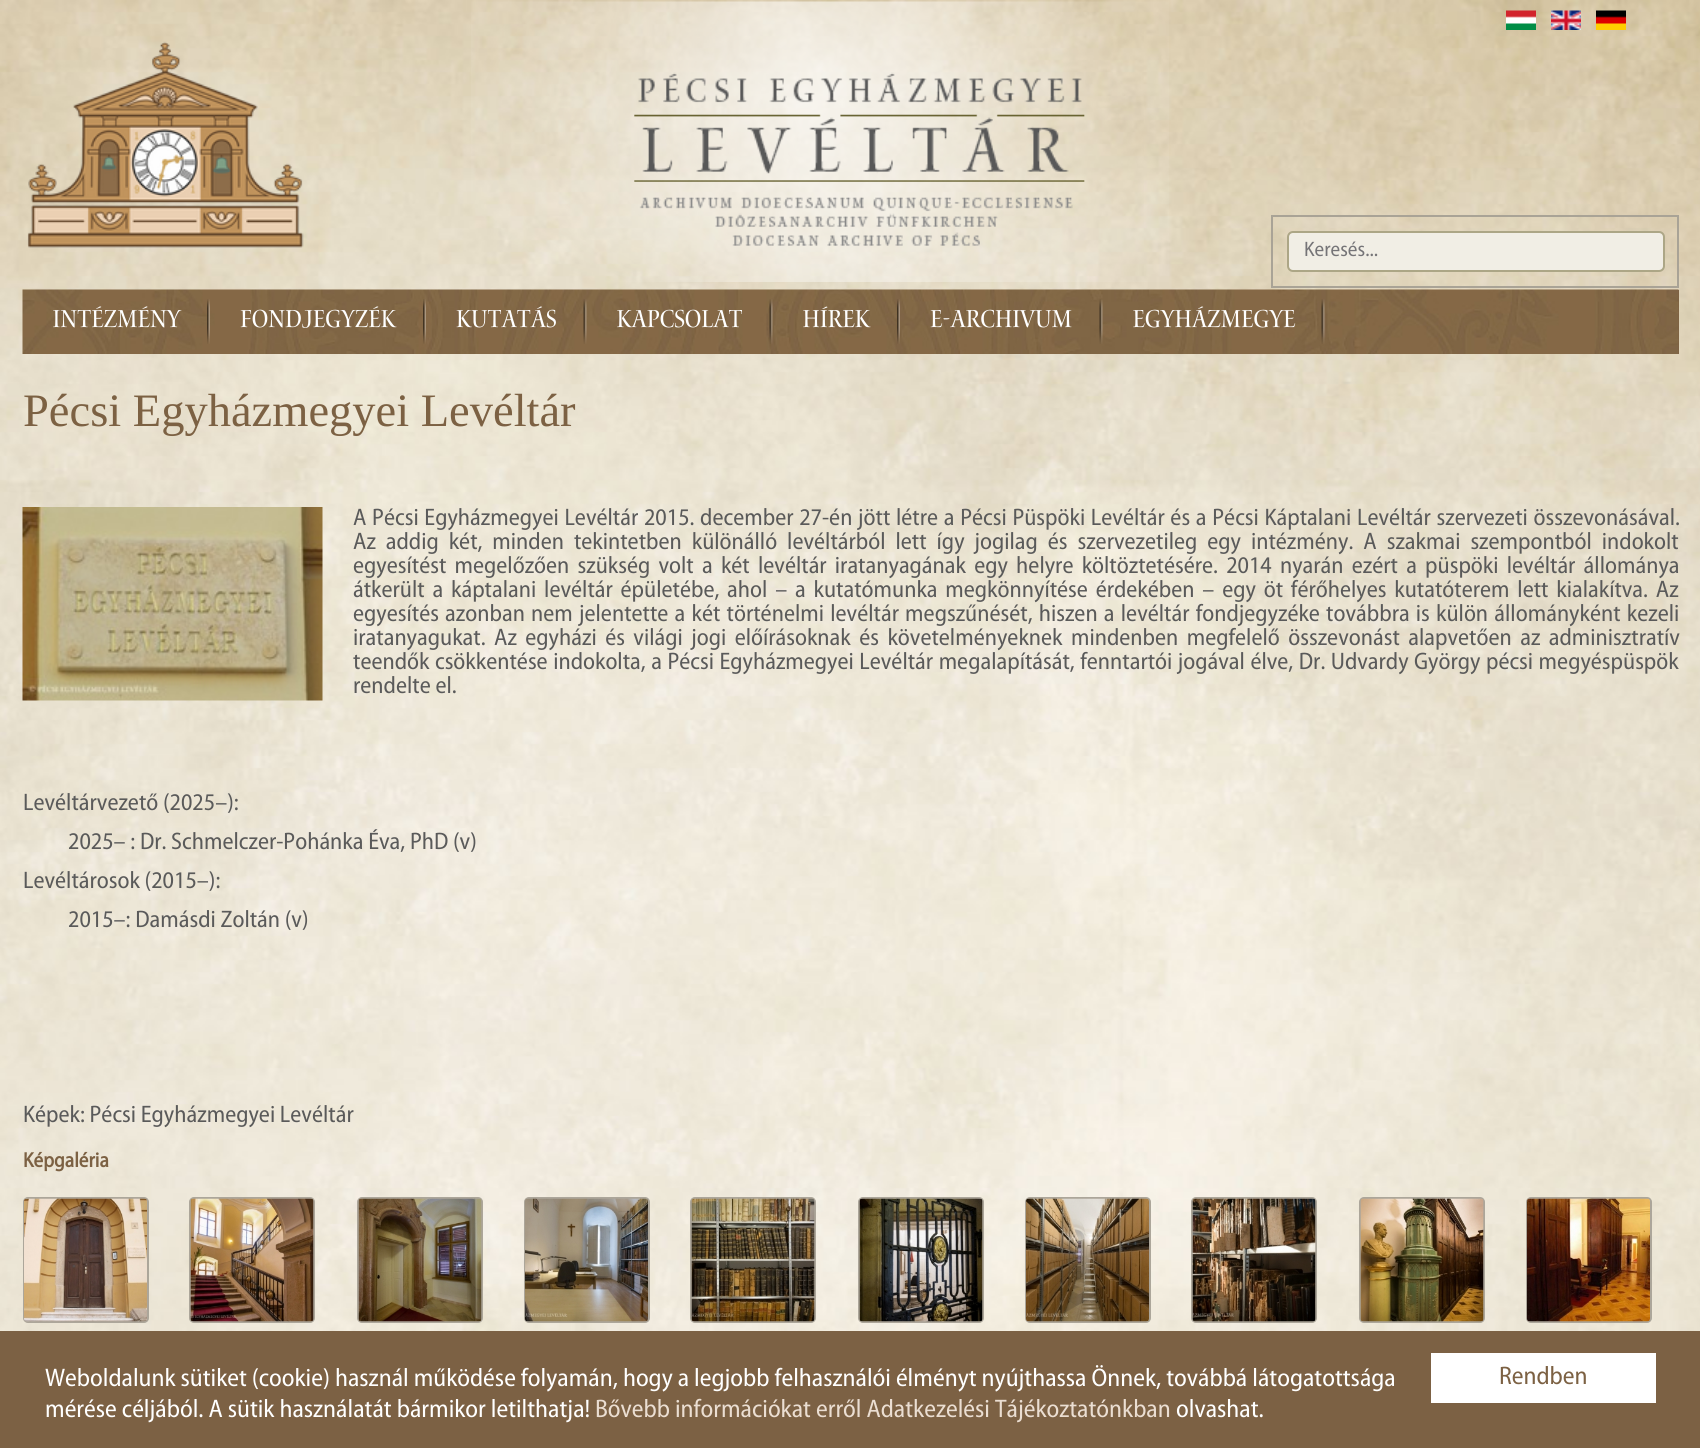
import math
import cairo

surface = cairo.ImageSurface(cairo.FORMAT_RGB24, 1700, 1448)
ctx = cairo.Context(surface)
options = cairo.FontOptions()
options.set_hint_metrics(cairo.HINT_METRICS_OFF)
options.set_hint_style(cairo.HINT_STYLE_NONE)
ctx.set_font_options(options)
ctx.set_miter_limit(4)


def spaced_text(x, y, s, letter, word):
    ctx.move_to(x, y)
    for ch in s:
        ctx.show_text(ch)
        ctx.rel_move_to(letter + word * (ch == ' '), 0)


def round_rect(x, y, w, h, r):
    ctx.new_sub_path()
    for i, (u, v) in enumerate([(x + w - r, y + h - r), (x + r, y + h - r), (x + r, y + r), (x + w - r, y + r)]):
        ctx.arc(u, v, r, i * math.pi / 2, (i + 1) * math.pi / 2)
    ctx.close_path()


def picture(path, x, y, w, h):
    ctx.save()
    ctx.set_source_surface(cairo.ImageSurface.create_from_png(path), x, y)
    ctx.rectangle(x, y, w, h)
    ctx.fill()
    ctx.restore()


ctx.set_source_rgb(1, 1, 1)
ctx.paint()
picture("img1.png", 0, 0, 1700, 1331)
picture("img2.png", 27, 41, 277, 207)
picture("img3.png", 471, 1, 698, 281)
picture("img4.png", 1506, 10, 30, 20)
picture("img5.png", 1551, 10, 30, 20)
picture("img6.png", 1596, 10, 30, 20)
ctx.rectangle(1272, 216, 406, 71)
ctx.set_source_rgb(0.663, 0.639, 0.588)
ctx.stroke()
ctx.set_source_rgb(0.945, 0.933, 0.898)
round_rect(1288, 232, 376, 39, 5)
ctx.fill_preserve()
ctx.set_source_rgb(0.675, 0.651, 0.525)
ctx.stroke()
ctx.select_font_face("Myriad")
ctx.set_font_size(21)
ctx.set_source_rgb(0.459, 0.455, 0.467)
ctx.move_to(1304, 256)
ctx.show_text("Keresés...")
ctx.set_source_rgb(0.486, 0.38, 0.263)
ctx.rectangle(1678, 290, 1, 64)
ctx.fill()
picture("img7.png", 22, 289, 1657, 65)
picture("img8.png", 207, 299, 3, 45)
picture("img9.png", 53, 306, 129, 22)
picture("img10.png", 423, 299, 3, 45)
picture("img11.png", 240, 306, 157, 22)
picture("img12.png", 583, 299, 4, 45)
picture("img13.png", 456, 306, 100, 22)
picture("img14.png", 769, 299, 4, 45)
picture("img15.png", 617, 309, 125, 19)
picture("img16.png", 897, 299, 3, 45)
picture("img17.png", 803, 306, 68, 22)
picture("img18.png", 1099, 299, 4, 45)
picture("img19.png", 930, 309, 142, 19)
picture("img20.png", 1321, 299, 4, 45)
picture("img21.png", 1133, 306, 163, 22)
ctx.select_font_face("Liberation Serif")
ctx.set_font_size(46.5)
ctx.move_to(23, 426)
ctx.show_text("Pécsi Egyházmegyei Levéltár")
picture("img22.png", 22, 507, 301, 194)
ctx.select_font_face("Myriad")
ctx.set_font_size(24)
ctx.set_source_rgb(0.353, 0.353, 0.353)
spaced_text(353, 525, "A Pécsi Egyházmegyei Levéltár 2015. december 27-én jött létre a Pécsi Püspöki Levéltár és a Pécsi Káptalani Levéltár szervezeti összevonásával.", 0, 1)
spaced_text(353, 549, "Az addig két, minden tekintetben különálló levéltárból lett így jogilag és szervezetileg egy intézmény. A szakmai szempontból indokolt", 0, 5.25)
spaced_text(353, 573, "egyesítést megelőzően szükség volt a két levéltár iratanyagának egy helyre költöztetésére. 2014 nyarán ezért a püspöki levéltár állománya", 0, 3.5)
spaced_text(353, 597, "átkerült a káptalani levéltár épületébe, ahol – a kutatómunka megkönnyítése érdekében – egy öt férőhelyes kutatóterem lett kialakítva. Az", 0, 3.1)
spaced_text(353, 621, "egyesítés azonban nem jelentette a két történelmi levéltár megszűnését, hiszen a levéltár fondjegyzéke továbbra is külön állományként kezeli", 0, 1.5)
spaced_text(353, 645, "iratanyagukat. Az egyházi és világi jogi előírásoknak és követelményeknek mindenben megfelelő összevonást alapvetően az adminisztratív", 0, 3.75)
spaced_text(353, 669, "teendők csökkentése indokolta, a Pécsi Egyházmegyei Levéltár megalapítását, fenntartói jogával élve, Dr. Udvardy György pécsi megyéspüspök", 0, 0.8)
ctx.move_to(353, 693)
ctx.show_text("rendelte el.")
ctx.move_to(23, 810)
ctx.show_text("Levéltárvezető (2025–):")
ctx.move_to(68, 849)
ctx.show_text("2025– : Dr. Schmelczer-Pohánka Éva, PhD (v)")
ctx.move_to(23, 888)
ctx.show_text("Levéltárosok (2015–):")
ctx.move_to(68, 927)
ctx.show_text("2015–: Damásdi Zoltán (v)")
ctx.move_to(23, 1122)
ctx.show_text("Képek: Pécsi Egyházmegyei Levéltár")
ctx.select_font_face("Myriad", cairo.FONT_SLANT_NORMAL, cairo.FONT_WEIGHT_BOLD)
ctx.set_font_size(21)
ctx.set_source_rgb(0.486, 0.38, 0.263)
ctx.move_to(23, 1167)
ctx.show_text("Képgaléria")
round_rect(24, 1198, 124, 124, 4)
ctx.set_source_rgb(0.675, 0.651, 0.604)
ctx.stroke()
round_rect(190, 1198, 124, 124, 4)
ctx.stroke()
round_rect(358, 1198, 124, 124, 4)
ctx.stroke()
round_rect(525, 1198, 124, 124, 4)
ctx.stroke()
round_rect(691, 1198, 124, 124, 4)
ctx.stroke()
round_rect(859, 1198, 124, 124, 4)
ctx.stroke()
round_rect(1026, 1198, 124, 124, 4)
ctx.stroke()
round_rect(1192, 1198, 124, 124, 4)
ctx.stroke()
round_rect(1360, 1198, 124, 124, 4)
ctx.stroke()
round_rect(1527, 1198, 124, 124, 4)
ctx.stroke()
picture("img23.png", 24, 1198, 123, 124)
picture("img24.png", 190, 1198, 124, 124)
picture("img25.png", 358, 1198, 124, 124)
picture("img26.png", 525, 1198, 123, 124)
picture("img27.png", 691, 1198, 124, 124)
picture("img28.png", 859, 1198, 124, 124)
picture("img29.png", 1026, 1198, 123, 124)
picture("img30.png", 1192, 1198, 124, 124)
picture("img31.png", 1360, 1198, 124, 124)
picture("img32.png", 1527, 1198, 123, 124)
ctx.set_source_rgb(0.486, 0.38, 0.267)
ctx.rectangle(0, 1331, 1700, 117)
ctx.fill()
ctx.select_font_face("Myriad")
ctx.set_font_size(25.5)
ctx.set_source_rgb(1, 1, 1)
ctx.move_to(45, 1386)
ctx.show_text("Weboldalunk sütiket (cookie) használ működése folyamán, hogy a legjobb felhasználói élményt nyújthassa Önnek, továbbá látogatottsága")
ctx.move_to(45, 1417)
ctx.show_text("mérése céljából. A sütik használatát bármikor letilthatja!")
ctx.set_source_rgb(0.918, 0.871, 0.824)
ctx.move_to(595, 1417)
ctx.show_text("Bővebb információkat erről Adatkezelési Tájékoztatónkban")
ctx.set_source_rgb(1, 1, 1)
ctx.move_to(1176, 1417)
ctx.show_text("olvashat.")
ctx.rectangle(1431, 1353, 225, 50)
ctx.fill()
ctx.set_source_rgb(0.486, 0.38, 0.263)
ctx.move_to(1499, 1384)
ctx.show_text("Rendben")
surface.write_to_png("page.png")
